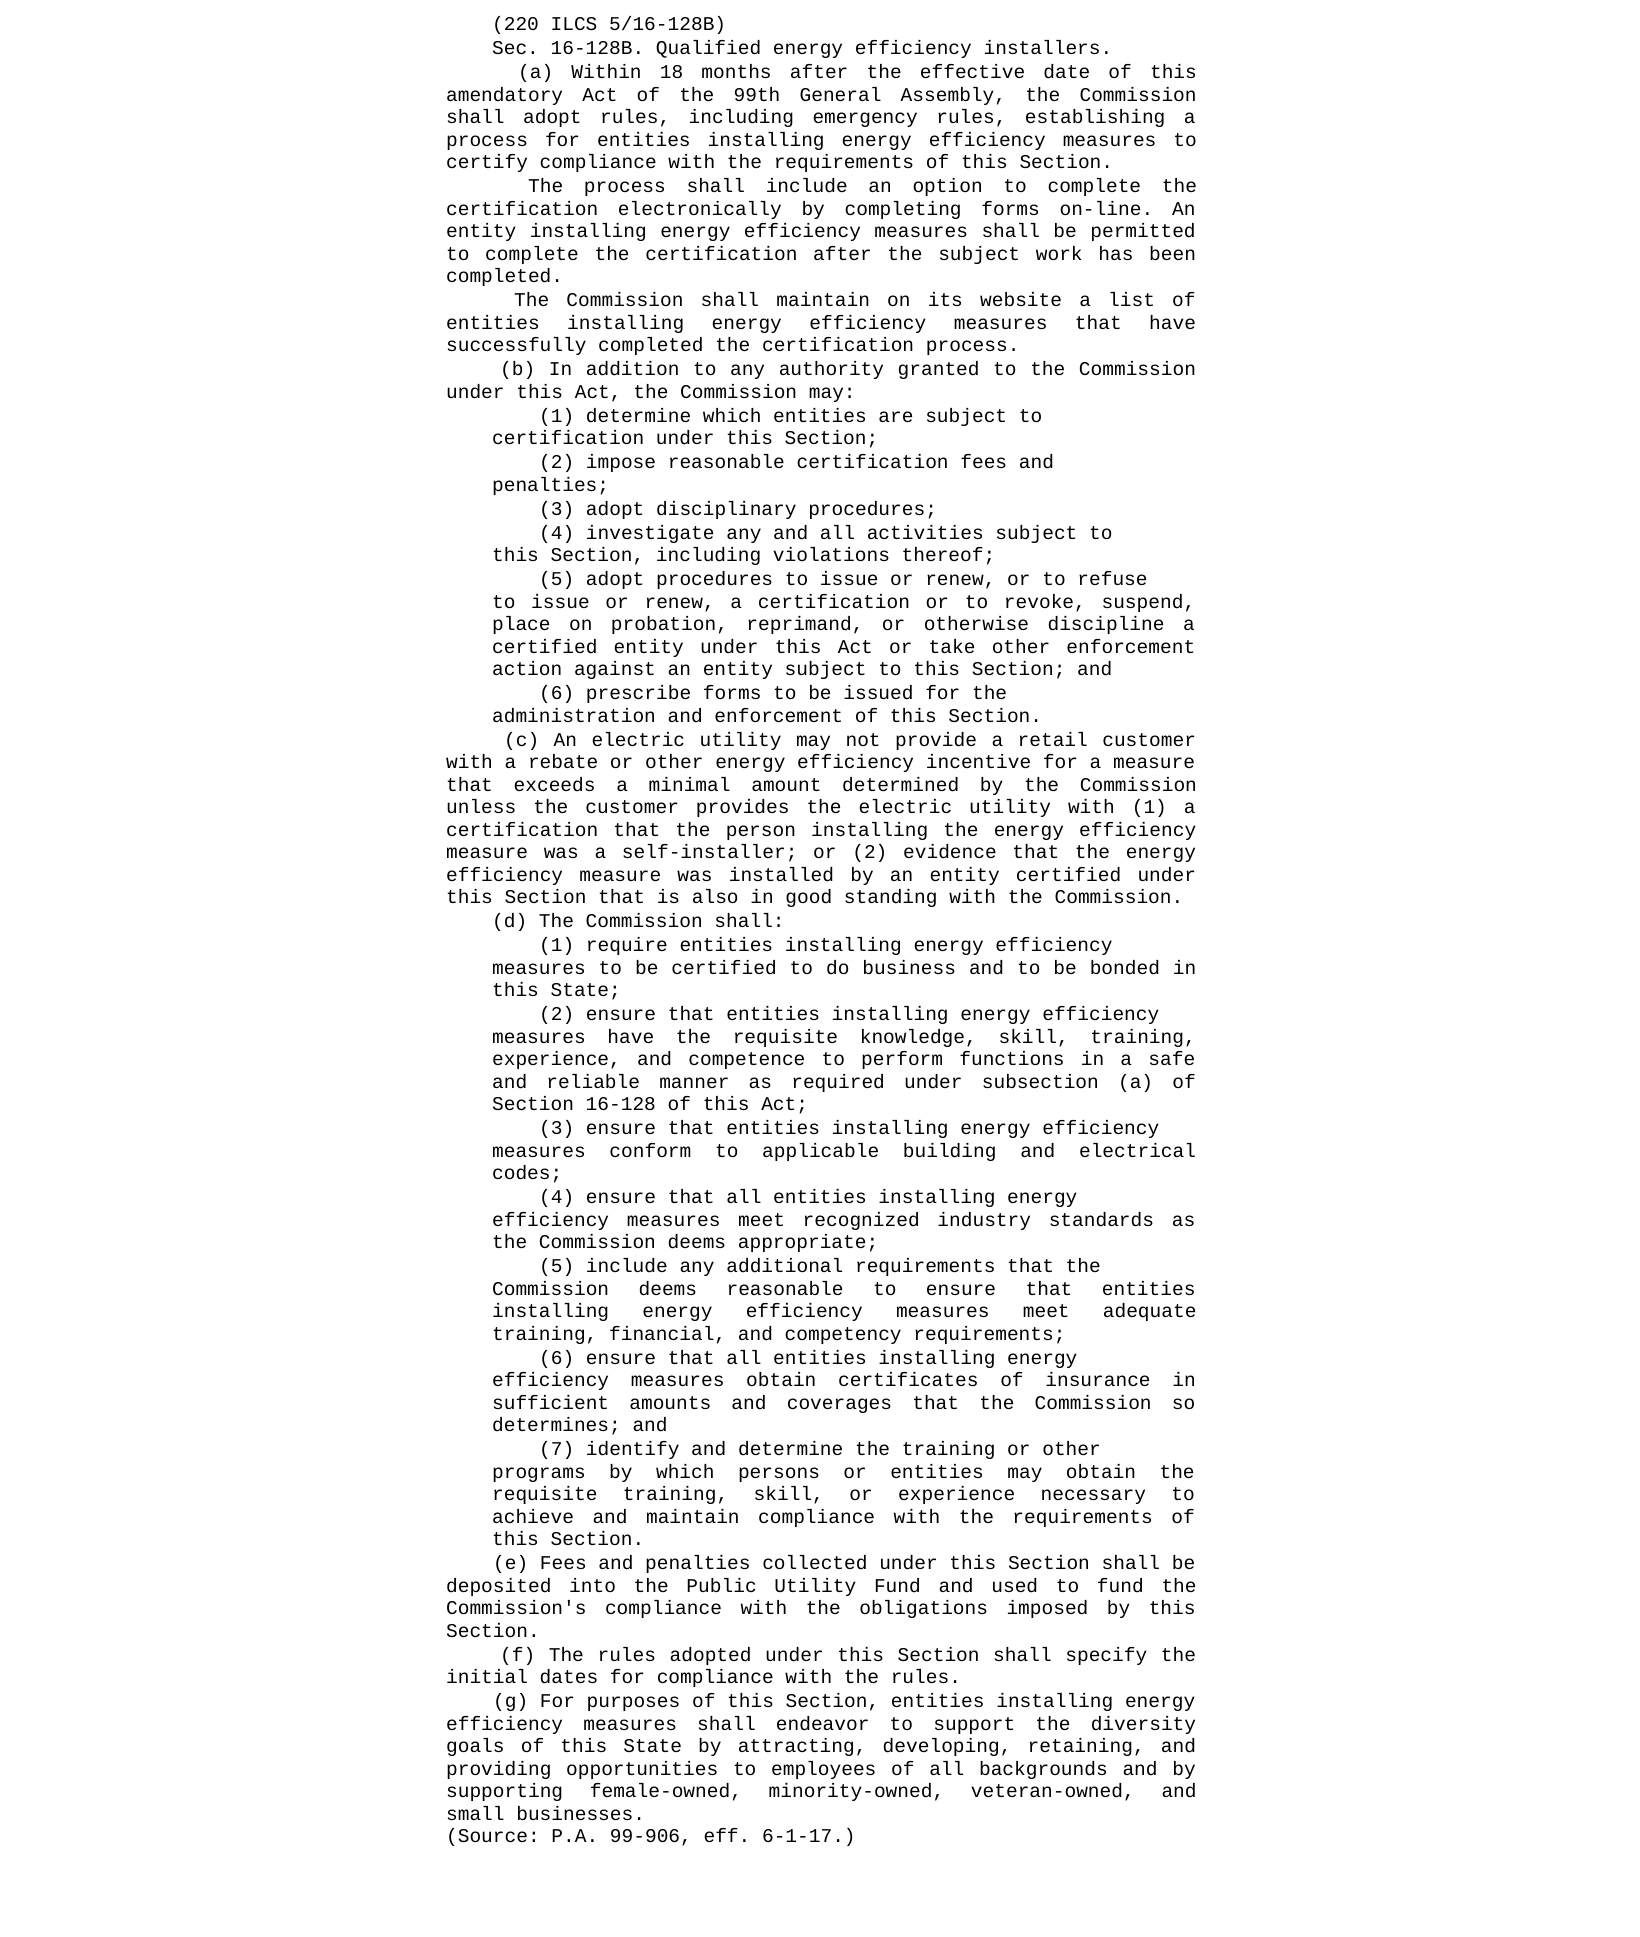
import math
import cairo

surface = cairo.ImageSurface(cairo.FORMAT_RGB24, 1640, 1937)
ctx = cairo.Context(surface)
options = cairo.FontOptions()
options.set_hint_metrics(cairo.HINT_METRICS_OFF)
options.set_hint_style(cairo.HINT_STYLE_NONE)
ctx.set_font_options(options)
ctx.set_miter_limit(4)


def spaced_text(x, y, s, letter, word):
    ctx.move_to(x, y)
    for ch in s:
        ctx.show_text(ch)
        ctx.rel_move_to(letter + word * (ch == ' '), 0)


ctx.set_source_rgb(1, 1, 1)
ctx.paint()
ctx.select_font_face("Liberation Mono")
ctx.set_font_size(19.5)
ctx.set_source_rgb(0, 0, 0)
ctx.move_to(492, 30)
ctx.show_text("(220 ILCS 5/16-128B)")
ctx.move_to(492, 54)
ctx.show_text("Sec. 16-128B. Qualified energy efficiency installers.")
spaced_text(518, 78, "(a) Within 18 months after the effective date of this", 0, 6.5)
spaced_text(446, 101, "amendatory Act of the 99th General Assembly, the Commission", 0, 7.5)
spaced_text(446, 123, "shall adopt rules, including emergency rules, establishing a", 0, 6.75)
spaced_text(446, 146, "process for entities installing energy efficiency measures to", 0, 5.25)
ctx.move_to(446, 168)
ctx.show_text("certify compliance with the requirements of this Section.")
spaced_text(528, 192, "The process shall include an option to complete the", 0, 9)
spaced_text(446, 215, "certification electronically by completing forms on-line.", 0, 8)
ctx.move_to(1172, 215)
ctx.show_text("An")
spaced_text(446, 237, "entity installing energy efficiency measures shall be permitted", 0, 1.75)
spaced_text(446, 260, "to complete the certification after the subject work has been", 0, 4)
ctx.move_to(446, 282)
ctx.show_text("completed.")
spaced_text(514, 306, "The Commission shall maintain on its website a list of", 0, 5.5)
spaced_text(446, 329, "entities installing energy efficiency measures that have", 0, 15.75)
ctx.move_to(446, 351)
ctx.show_text("successfully completed the certification process.")
spaced_text(500, 375, "(b) In addition to any authority granted to the Commission", 0, 1.9)
ctx.move_to(446, 398)
ctx.show_text("under this Act, the Commission may:")
ctx.move_to(539, 422)
ctx.show_text("(1) determine which entities are subject to")
ctx.move_to(492, 444)
ctx.show_text("certification under this Section;")
ctx.move_to(539, 468)
ctx.show_text("(2) impose reasonable certification fees and")
ctx.move_to(492, 491)
ctx.show_text("penalties;")
ctx.move_to(539, 515)
ctx.show_text("(3) adopt disciplinary procedures;")
ctx.move_to(539, 539)
ctx.show_text("(4) investigate any and all activities subject to")
ctx.move_to(492, 561)
ctx.show_text("this Section, including violations thereof;")
ctx.move_to(539, 585)
ctx.show_text("(5) adopt procedures to issue or renew, or to refuse")
spaced_text(492, 608, "to issue or renew, a certification or to revoke, suspend,", 0, 4)
spaced_text(492, 630, "place on probation, reprimand, or otherwise discipline a", 0, 6.75)
spaced_text(492, 653, "certified entity under this Act or take other enforcement", 0, 4.5)
ctx.move_to(492, 675)
ctx.show_text("action against an entity subject to this Section; and")
ctx.move_to(539, 699)
ctx.show_text("(6) prescribe forms to be issued for the")
ctx.move_to(492, 722)
ctx.show_text("administration and enforcement of this Section.")
spaced_text(504, 746, "(c) An electric utility may not provide a retail customer", 0, 2.75)
ctx.move_to(446, 768)
ctx.show_text("with a rebate or other energy efficiency incentive for a measure")
spaced_text(446, 791, "that exceeds a minimal amount determined by the Commission", 0, 9)
spaced_text(446, 813, "unless the customer provides the electric utility with (1) a", 0, 5.25)
spaced_text(446, 836, "certification that the person installing the energy efficiency", 0, 3.5)
spaced_text(446, 858, "measure was a self-installer; or (2) evidence that the energy", 0, 4)
spaced_text(446, 881, "efficiency measure was installed by an entity certified under", 0, 4.5)
ctx.move_to(446, 903)
ctx.show_text("this Section that is also in good standing with the Commission.")
ctx.move_to(492, 927)
ctx.show_text("(d) The Commission shall:")
ctx.move_to(539, 951)
ctx.show_text("(1) require entities installing energy efficiency")
spaced_text(492, 974, "measures to be certified to do business and to be bonded in", 0, 1.25)
ctx.move_to(492, 996)
ctx.show_text("this State;")
ctx.move_to(539, 1020)
ctx.show_text("(2) ensure that entities installing energy efficiency")
spaced_text(492, 1043, "measures have the requisite knowledge, skill, training,", 0, 10)
spaced_text(492, 1065, "experience, and competence to perform functions in a safe", 0, 4.5)
spaced_text(492, 1088, "and reliable manner as required under subsection (a) of", 0, 7.5)
ctx.move_to(492, 1110)
ctx.show_text("Section 16-128 of this Act;")
ctx.move_to(539, 1134)
ctx.show_text("(3) ensure that entities installing energy efficiency")
spaced_text(492, 1157, "measures conform to applicable building and electrical", 0, 12)
ctx.move_to(492, 1179)
ctx.show_text("codes;")
ctx.move_to(539, 1203)
ctx.show_text("(4) ensure that all entities installing energy")
spaced_text(492, 1226, "efficiency measures meet recognized industry standards as", 0, 6)
ctx.move_to(492, 1248)
ctx.show_text("the Commission deems appropriate;")
ctx.move_to(539, 1272)
ctx.show_text("(5) include any additional requirements that the")
spaced_text(492, 1295, "Commission deems reasonable to ensure that entities", 0, 17.75)
spaced_text(492, 1317, "installing energy efficiency measures meet adequate", 0, 21.5)
ctx.move_to(492, 1340)
ctx.show_text("training, financial, and competency requirements;")
ctx.move_to(539, 1364)
ctx.show_text("(6) ensure that all entities installing energy")
spaced_text(492, 1386, "efficiency measures obtain certificates of insurance in", 0, 10)
spaced_text(492, 1409, "sufficient amounts and coverages that the Commission so", 0, 8.5)
ctx.move_to(492, 1431)
ctx.show_text("determines; and")
ctx.move_to(539, 1455)
ctx.show_text("(7) identify and determine the training or other")
spaced_text(492, 1478, "programs by which persons or entities may obtain the", 0, 11.75)
spaced_text(492, 1500, "requisite training, skill, or experience necessary to", 0, 13.75)
spaced_text(492, 1523, "achieve and maintain compliance with the requirements of", 0, 6.75)
ctx.move_to(492, 1545)
ctx.show_text("this Section.")
ctx.move_to(493, 1569)
ctx.show_text("(e) Fees and penalties collected under this Section shall be")
spaced_text(446, 1592, "deposited into the Public Utility Fund and used to fund the", 0, 6)
spaced_text(446, 1614, "Commission's compliance with the obligations imposed by this", 0, 6.75)
ctx.move_to(446, 1637)
ctx.show_text("Section.")
spaced_text(500, 1661, "(f) The rules adopted under this Section shall specify the", 0, 1.9)
ctx.move_to(446, 1683)
ctx.show_text("initial dates for compliance with the rules.")
ctx.move_to(493, 1707)
ctx.show_text("(g) For purposes of this Section, entities installing energy")
spaced_text(446, 1730, "efficiency measures shall endeavor to support the diversity", 0, 8.5)
spaced_text(446, 1752, "goals of this State by attracting, developing, retaining, and", 0, 4.5)
spaced_text(446, 1775, "providing opportunities to employees of all backgrounds and by", 0, 3)
spaced_text(446, 1797, "supporting female-owned, minority-owned, veteran-owned, and", 0, 15)
ctx.move_to(446, 1820)
ctx.show_text("small businesses.")
ctx.move_to(446, 1842)
ctx.show_text("(Source: P.A. 99-906, eff. 6-1-17.)")
surface.write_to_png("page.png")
